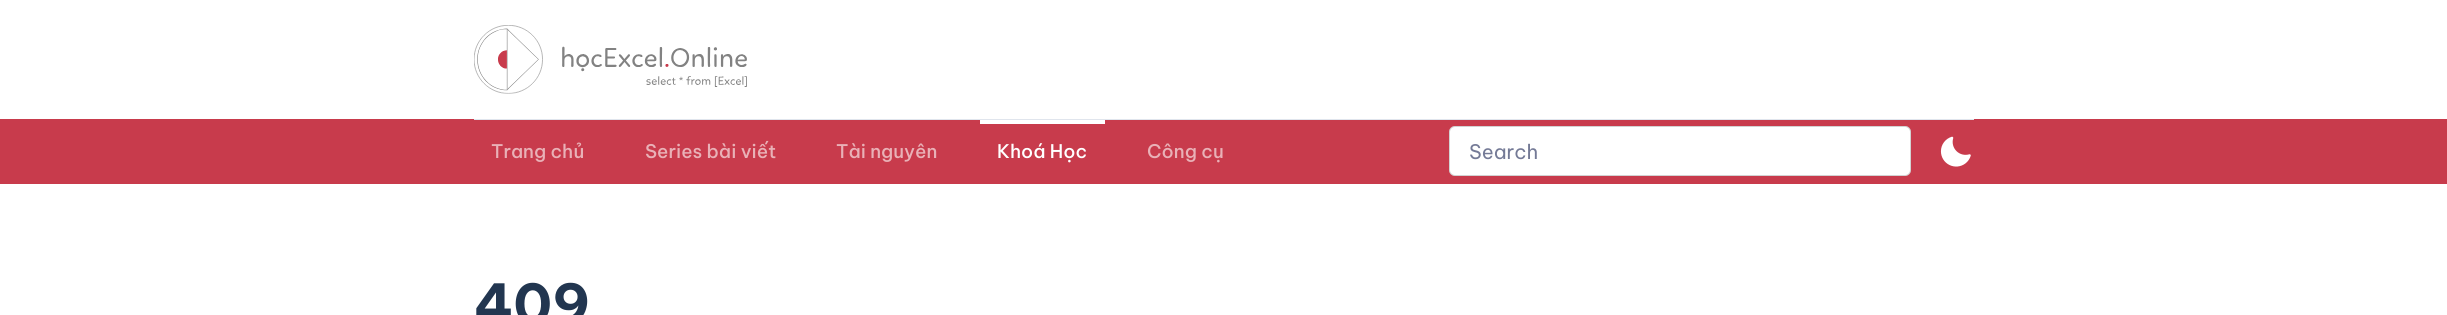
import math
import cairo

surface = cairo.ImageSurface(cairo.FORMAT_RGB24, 2447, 315)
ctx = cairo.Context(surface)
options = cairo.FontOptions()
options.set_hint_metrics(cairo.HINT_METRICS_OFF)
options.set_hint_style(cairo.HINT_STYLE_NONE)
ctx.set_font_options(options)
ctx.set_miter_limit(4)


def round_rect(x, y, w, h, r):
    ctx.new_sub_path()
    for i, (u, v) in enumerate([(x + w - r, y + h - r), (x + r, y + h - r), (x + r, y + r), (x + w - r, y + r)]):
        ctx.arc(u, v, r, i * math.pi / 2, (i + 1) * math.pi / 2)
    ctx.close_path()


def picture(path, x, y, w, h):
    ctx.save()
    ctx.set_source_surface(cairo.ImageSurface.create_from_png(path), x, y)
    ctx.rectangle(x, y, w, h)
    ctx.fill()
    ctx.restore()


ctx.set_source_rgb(1, 1, 1)
ctx.paint()
picture("img1.png", 474, 25, 273, 69)
ctx.set_source_rgb(0.784, 0.231, 0.298)
ctx.rectangle(0, 119, 2447, 65)
ctx.fill()
ctx.set_source_rgb(0.878, 0.898, 0.929)
ctx.rectangle(474, 119, 1500, 1)
ctx.fill()
ctx.select_font_face("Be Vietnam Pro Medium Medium")
ctx.set_font_size(18.75)
ctx.set_source_rgb(0.914, 0.694, 0.718)
ctx.move_to(491, 158)
ctx.show_text("Trang chủ")
ctx.move_to(645, 158)
ctx.show_text("Series bài viết")
ctx.move_to(836, 158)
ctx.show_text("Tài nguyên")
ctx.set_source_rgb(1, 1, 1)
ctx.rectangle(980, 120, 125, 4)
ctx.fill()
ctx.move_to(997, 158)
ctx.show_text("Khoá Học")
ctx.set_source_rgb(0.914, 0.694, 0.718)
ctx.move_to(1147, 158)
ctx.show_text("Công cụ")
ctx.set_source_rgb(1, 1, 1)
round_rect(1449, 126, 462, 50, 6)
ctx.fill()
round_rect(1449.5, 126.5, 461, 49, 5.5)
ctx.set_source_rgba(0.129, 0.129, 0.129, 0.2)
ctx.set_line_width(1)
ctx.stroke()
ctx.select_font_face("Be Vietnam Pro")
ctx.set_font_size(20)
ctx.set_source_rgb(0.455, 0.478, 0.588)
ctx.move_to(1469, 159)
ctx.show_text("Search")
picture("img2.png", 1940, 136, 31, 31)
ctx.select_font_face("Be Vietnam Pro", cairo.FONT_SLANT_NORMAL, cairo.FONT_WEIGHT_BOLD)
ctx.set_font_size(55)
ctx.set_source_rgb(0.133, 0.212, 0.314)
ctx.move_to(474, 324)
ctx.show_text("409")
surface.write_to_png("page.png")
